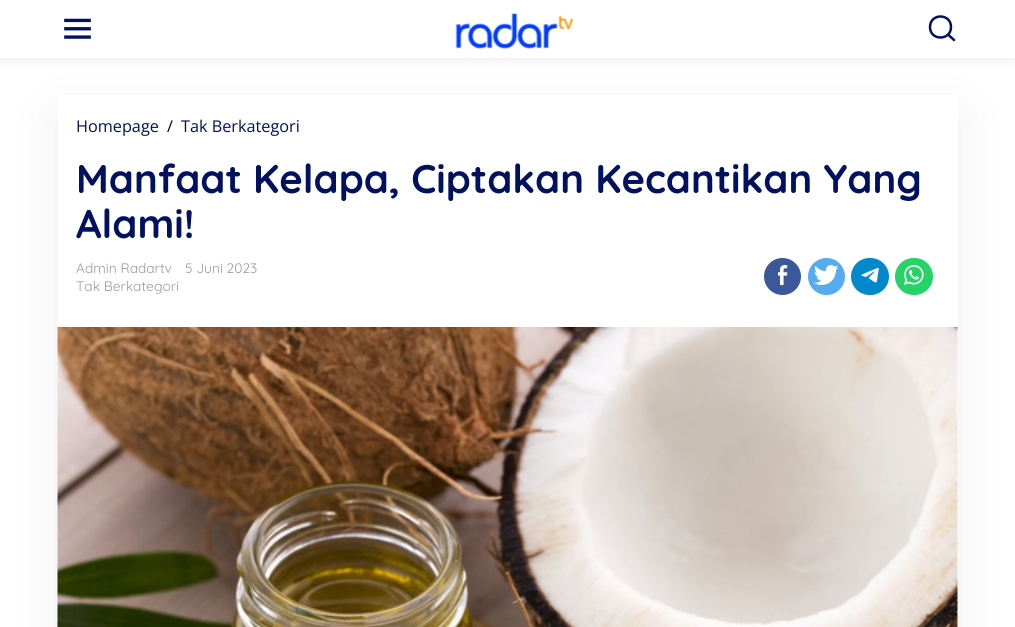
import math
import cairo

surface = cairo.ImageSurface(cairo.FORMAT_RGB24, 1015, 627)
ctx = cairo.Context(surface)
options = cairo.FontOptions()
options.set_hint_metrics(cairo.HINT_METRICS_OFF)
options.set_hint_style(cairo.HINT_STYLE_NONE)
ctx.set_font_options(options)
ctx.set_miter_limit(4)


def round_rect(x, y, w, h, r):
    ctx.new_sub_path()
    for i, (u, v) in enumerate([(x + w - r, y + h - r), (x + r, y + h - r), (x + r, y + r), (x + w - r, y + r)]):
        ctx.arc(u, v, r, i * math.pi / 2, (i + 1) * math.pi / 2)
    ctx.close_path()


def shadow(x, y, w, h, r, blur, alpha):
    ctx.push_group_with_content(cairo.CONTENT_ALPHA)
    ctx.set_operator(cairo.OPERATOR_SOURCE)
    for i in range(15, -16, -2):
        e = blur * i / 6
        if min(w, h) + 2 * e > 0:
            ctx.set_source_rgba(0, 0, 0, alpha * math.erfc((i - 1) / 8.5) / 2)
            round_rect(x - e, y - e, w + 2 * e, h + 2 * e, max(0, min(r + e + blur * .6, min(w, h) / 2 + e)))
            ctx.fill()
    ctx.mask(ctx.pop_group())


def picture(path, x, y, w, h):
    ctx.save()
    ctx.set_source_surface(cairo.ImageSurface.create_from_png(path), x, y)
    ctx.rectangle(x, y, w, h)
    ctx.fill()
    ctx.restore()


ctx.set_source_rgb(1, 1, 1)
ctx.paint()
ctx.set_source_rgb(0, 0, 0)
shadow(0, 0, 1015, 58, 0, 6, 0.1)
shadow(58, 115, 900, 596, 0, 28, 0.07)
ctx.set_source_rgb(1, 1, 1)
ctx.rectangle(0, 0, 1015, 58)
ctx.fill()
picture("img1.png", 64, 18, 27, 21)
picture("img2.png", 455, 13, 119, 36)
ctx.new_path()
ctx.move_to(954, 40)
ctx.line_to(948, 34.5)
ctx.move_to(951, 27)
ctx.curve_to(951, 41, 930, 41, 930, 27)
ctx.curve_to(930, 13, 951, 13, 951, 27)
ctx.close_path()
ctx.set_source_rgb(0, 0.067, 0.376)
ctx.set_line_width(2.5)
ctx.set_line_cap(cairo.LINE_CAP_ROUND)
ctx.stroke()
ctx.set_source_rgb(1, 1, 1)
ctx.rectangle(58, 95, 900, 532)
ctx.fill()
ctx.select_font_face("Open Sans")
ctx.set_font_size(16.25)
ctx.set_source_rgb(0, 0.067, 0.376)
ctx.move_to(76, 132)
ctx.show_text("Homepage")
ctx.set_source_rgb(0, 0, 0)
ctx.move_to(167, 132)
ctx.show_text("/")
ctx.set_source_rgb(0, 0.067, 0.376)
ctx.move_to(181, 132)
ctx.show_text("Tak Berkategori")
ctx.select_font_face("Quicksand", cairo.FONT_SLANT_NORMAL, cairo.FONT_WEIGHT_BOLD)
ctx.set_font_size(40)
ctx.move_to(76, 193)
ctx.show_text("Manfaat Kelapa, Ciptakan Kecantikan Yang")
ctx.move_to(76, 238)
ctx.show_text("Alami!")
ctx.select_font_face("Quicksand")
ctx.set_font_size(13.75)
ctx.set_source_rgb(0.6, 0.6, 0.6)
ctx.move_to(76, 273)
ctx.show_text("Admin Radartv")
ctx.move_to(185, 273)
ctx.show_text("5 Juni 2023")
ctx.move_to(76, 291)
ctx.show_text("Tak Berkategori")
ctx.set_source_rgb(0.231, 0.349, 0.596)
ctx.new_path()
ctx.arc(782.5, 276.5, 18.5, 0, 2 * math.pi)
ctx.fill()
picture("img3.png", 778, 265, 10, 20)
ctx.set_source_rgb(0.333, 0.675, 0.933)
ctx.arc(826.5, 276.5, 18.5, 0, 2 * math.pi)
ctx.fill()
picture("img4.png", 814, 265, 25, 20)
ctx.set_source_rgb(0, 0.533, 0.8)
round_rect(851, 258, 38, 37, 18.5)
ctx.fill()
picture("img5.png", 861, 268, 18, 15)
ctx.set_source_rgb(0.145, 0.827, 0.4)
round_rect(895, 258, 38, 37, 18.5)
ctx.fill()
picture("img6.png", 904, 265, 20, 20)
picture("img7.png", 57, 327, 901, 300)
surface.write_to_png("page.png")
